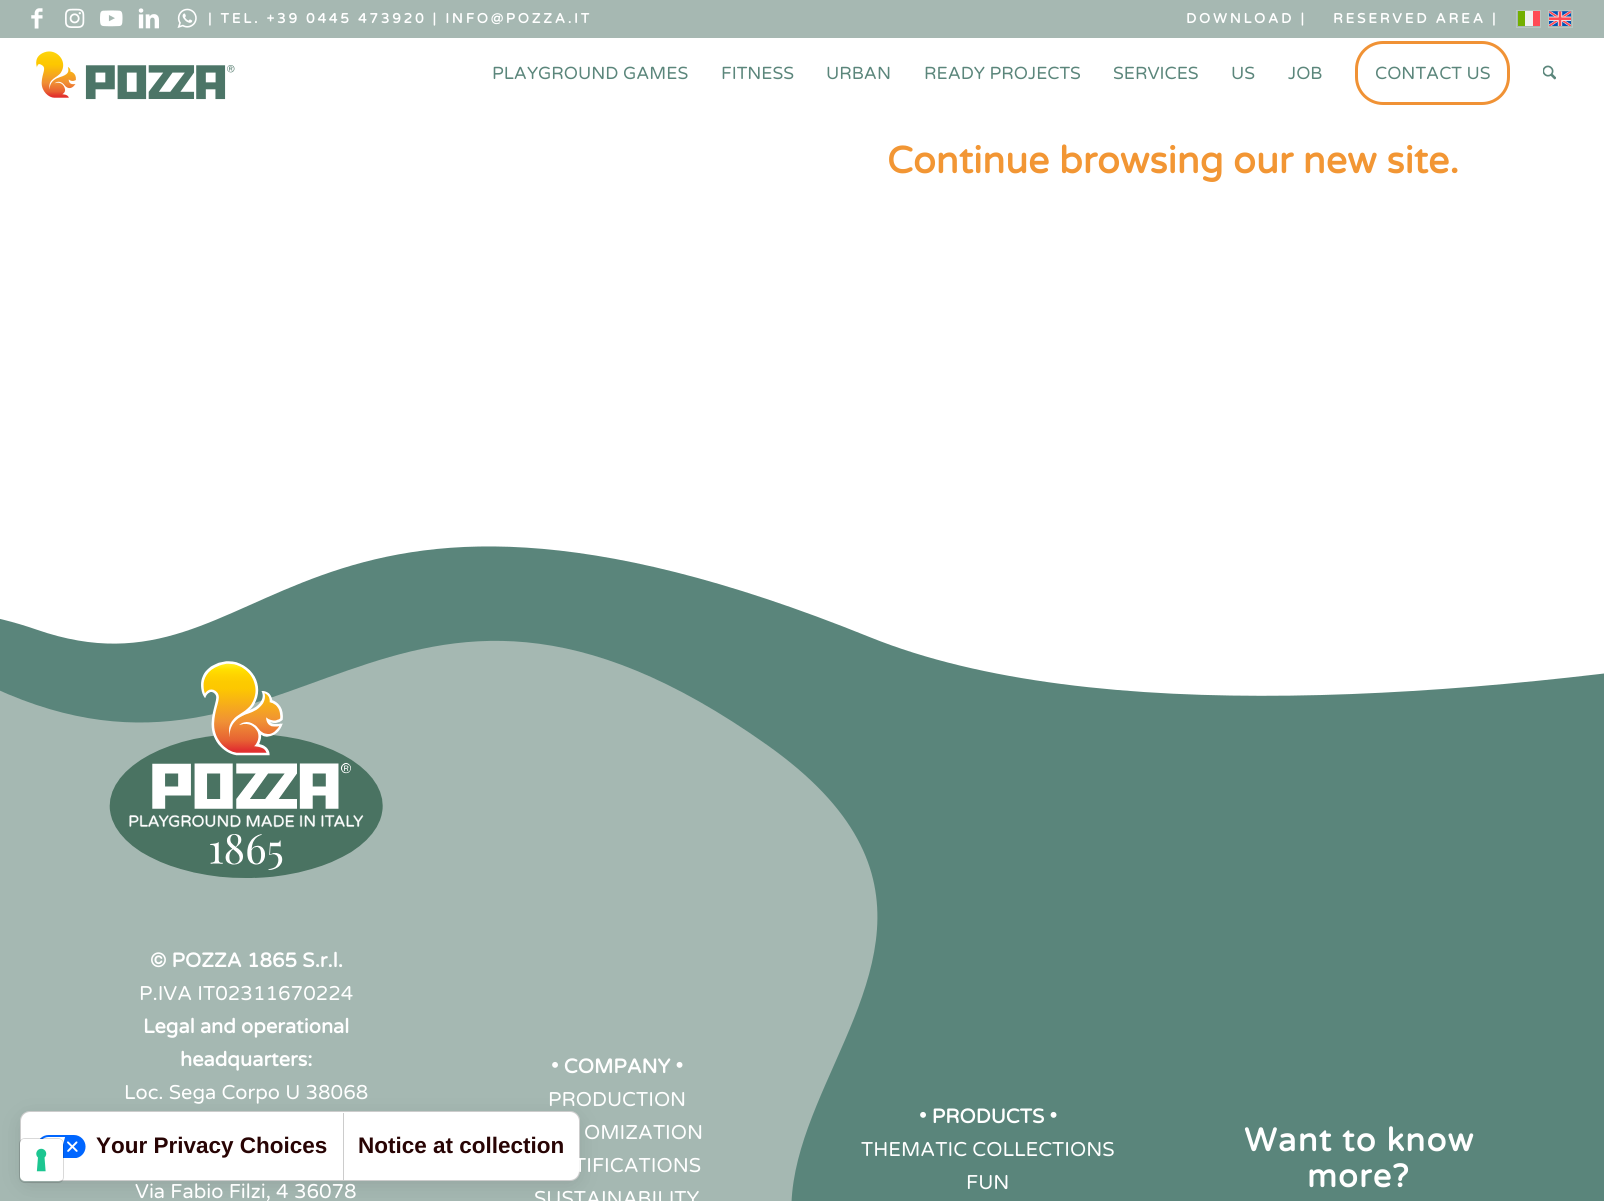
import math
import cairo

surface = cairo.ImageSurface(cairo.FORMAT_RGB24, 1604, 1201)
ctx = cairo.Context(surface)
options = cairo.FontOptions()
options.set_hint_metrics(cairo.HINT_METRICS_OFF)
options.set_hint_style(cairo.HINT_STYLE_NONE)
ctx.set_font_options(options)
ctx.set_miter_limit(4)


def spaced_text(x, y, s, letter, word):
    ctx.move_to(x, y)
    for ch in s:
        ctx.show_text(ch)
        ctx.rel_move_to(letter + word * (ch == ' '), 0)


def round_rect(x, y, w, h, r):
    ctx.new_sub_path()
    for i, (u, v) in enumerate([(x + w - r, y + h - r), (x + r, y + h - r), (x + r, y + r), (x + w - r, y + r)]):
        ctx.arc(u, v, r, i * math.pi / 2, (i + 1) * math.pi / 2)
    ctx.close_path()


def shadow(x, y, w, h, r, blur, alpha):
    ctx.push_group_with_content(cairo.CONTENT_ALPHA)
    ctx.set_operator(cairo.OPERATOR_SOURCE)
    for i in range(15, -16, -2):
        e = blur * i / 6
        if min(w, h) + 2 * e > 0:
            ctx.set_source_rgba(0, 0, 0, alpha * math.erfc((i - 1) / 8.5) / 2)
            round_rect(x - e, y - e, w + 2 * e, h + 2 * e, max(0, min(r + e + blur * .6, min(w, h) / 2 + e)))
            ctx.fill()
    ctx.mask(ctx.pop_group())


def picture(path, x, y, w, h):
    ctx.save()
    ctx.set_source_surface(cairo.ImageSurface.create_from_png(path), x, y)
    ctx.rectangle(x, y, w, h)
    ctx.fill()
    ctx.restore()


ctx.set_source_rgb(1, 1, 1)
ctx.paint()
ctx.set_source_rgb(0.651, 0.722, 0.698)
ctx.rectangle(0, 0, 1604, 38)
ctx.fill()
picture("img1.png", 31, 8, 12, 21)
picture("img2.png", 65, 8, 20, 20)
picture("img3.png", 100, 10, 23, 17)
picture("img4.png", 138, 8, 21, 21)
picture("img5.png", 177, 8, 20, 20)
ctx.select_font_face("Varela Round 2", cairo.FONT_SLANT_NORMAL, cairo.FONT_WEIGHT_BOLD)
ctx.set_font_size(13.75)
ctx.set_source_rgb(1, 1, 1)
spaced_text(208, 23, "| TEL. +39 0445 473920 | INFO@POZZA.IT", 2.75, 0)
spaced_text(1186, 23, "DOWNLOAD |", 2.75, 0)
spaced_text(1333, 23, "RESERVED AREA |", 2.75, 0)
ctx.rectangle(1516.5, 10.5, 24, 17)
ctx.set_source_rgb(0.722, 0.776, 0.757)
ctx.set_line_width(1)
ctx.stroke()
ctx.set_source_rgb(0.941, 0.941, 0.941)
ctx.rectangle(1525, 11, 8, 15)
ctx.fill()
ctx.set_source_rgb(1, 0.294, 0.333)
ctx.rectangle(1533, 11, 7, 15)
ctx.fill()
ctx.set_source_rgb(0.451, 0.686, 0)
ctx.rectangle(1518, 11, 7, 15)
ctx.fill()
ctx.rectangle(1548.5, 10.5, 24, 17)
ctx.set_source_rgb(0.722, 0.776, 0.757)
ctx.stroke()
picture("img6.png", 1549, 11, 22, 15)
picture("img7.png", 36, 51, 199, 49)
ctx.select_font_face("Varela Round 2")
ctx.set_font_size(17.5)
ctx.set_source_rgb(0.357, 0.525, 0.482)
ctx.move_to(492, 79)
ctx.show_text("PLAYGROUND GAMES")
ctx.move_to(721, 79)
ctx.show_text("FITNESS")
ctx.move_to(826, 79)
ctx.show_text("URBAN")
ctx.move_to(924, 79)
ctx.show_text("READY PROJECTS")
ctx.move_to(1113, 79)
ctx.show_text("SERVICES")
ctx.move_to(1231, 79)
ctx.show_text("US")
ctx.move_to(1288, 79)
ctx.show_text("JOB")
round_rect(1356.5, 42.5, 152, 61, 26.5)
ctx.set_source_rgb(0.941, 0.573, 0.208)
ctx.set_line_width(3)
ctx.stroke()
ctx.set_source_rgb(0.357, 0.525, 0.482)
ctx.move_to(1375, 79)
ctx.show_text("CONTACT US")
picture("img8.png", 1543, 65, 13, 15)
ctx.select_font_face("Varela Round", cairo.FONT_SLANT_NORMAL, cairo.FONT_WEIGHT_BOLD)
ctx.set_font_size(37.5)
ctx.set_source_rgb(0.949, 0.588, 0.204)
ctx.move_to(887, 173)
ctx.show_text("Continue browsing our new site.")
picture("img9.png", 0, 546, 1604, 655)
picture("img10.png", 109, 661, 274, 217)
ctx.set_font_size(20)
ctx.set_source_rgb(1, 1, 1)
ctx.move_to(150, 967)
ctx.show_text("© POZZA 1865 S.r.l.")
ctx.select_font_face("Varela Round")
ctx.move_to(139, 1000)
ctx.show_text("P.IVA IT02311670224")
ctx.select_font_face("Varela Round", cairo.FONT_SLANT_NORMAL, cairo.FONT_WEIGHT_BOLD)
ctx.move_to(143, 1033)
ctx.show_text("Legal and operational")
ctx.move_to(180, 1066)
ctx.show_text("headquarters:")
ctx.set_source_rgb(0, 0, 0)
shadow(20, 1116, 560, 70, 10, 10, 0.1)
ctx.select_font_face("Varela Round")
ctx.set_source_rgb(1, 1, 1)
ctx.move_to(124, 1099)
ctx.show_text("Loc. Sega Corpo U 38068")
ctx.move_to(135, 1198)
ctx.show_text("Via Fabio Filzi, 4 36078")
ctx.select_font_face("Varela Round", cairo.FONT_SLANT_NORMAL, cairo.FONT_WEIGHT_BOLD)
ctx.move_to(551, 1073)
ctx.show_text("• COMPANY •")
ctx.select_font_face("Varela Round")
ctx.move_to(548, 1106)
ctx.show_text("PRODUCTION")
ctx.move_to(584, 1139)
ctx.show_text("OMIZATION")
round_rect(20, 1111, 560, 70, 10)
ctx.fill()
round_rect(20.5, 1111.5, 559, 69, 9.5)
ctx.set_source_rgba(0, 0, 0, 0.2)
ctx.set_line_width(1)
ctx.stroke()
ctx.set_source_rgb(1, 1, 1)
ctx.move_to(574, 1172)
ctx.show_text("TIFICATIONS")
ctx.move_to(534, 1205)
ctx.show_text("SUSTAINABILITY")
ctx.select_font_face("Varela Round", cairo.FONT_SLANT_NORMAL, cairo.FONT_WEIGHT_BOLD)
ctx.move_to(919, 1123)
ctx.show_text("• PRODUCTS •")
ctx.select_font_face("Varela Round")
ctx.move_to(861, 1156)
ctx.show_text("THEMATIC COLLECTIONS")
ctx.move_to(966, 1189)
ctx.show_text("FUN")
ctx.select_font_face("Varela Round 2", cairo.FONT_SLANT_NORMAL, cairo.FONT_WEIGHT_BOLD)
ctx.set_font_size(32.5)
spaced_text(1244, 1151, "Want to know", 1.25, 0)
spaced_text(1307, 1187, "more?", 1.25, 0)
picture("img12.png", 40, 1135, 46, 23)
round_rect(19.5, 1138.5, 44, 44, 5.5)
ctx.set_source_rgba(0, 0, 0, 0.15)
ctx.stroke()
ctx.set_source_rgb(1, 1, 1)
round_rect(20, 1139, 43, 42, 5)
ctx.fill()
picture("img11.png", 36, 1148, 11, 24)
ctx.set_source_rgb(0.8, 0.8, 0.8)
ctx.rectangle(343, 1113, 1, 67)
ctx.fill()
ctx.select_font_face("Liberation Sans", cairo.FONT_SLANT_NORMAL, cairo.FONT_WEIGHT_BOLD)
ctx.set_font_size(22.5)
ctx.set_source_rgb(0.157, 0.016, 0.016)
ctx.move_to(96, 1153)
ctx.show_text("Your Privacy Choices")
ctx.move_to(358, 1153)
ctx.show_text("Notice at collection")
surface.write_to_png("page.png")
